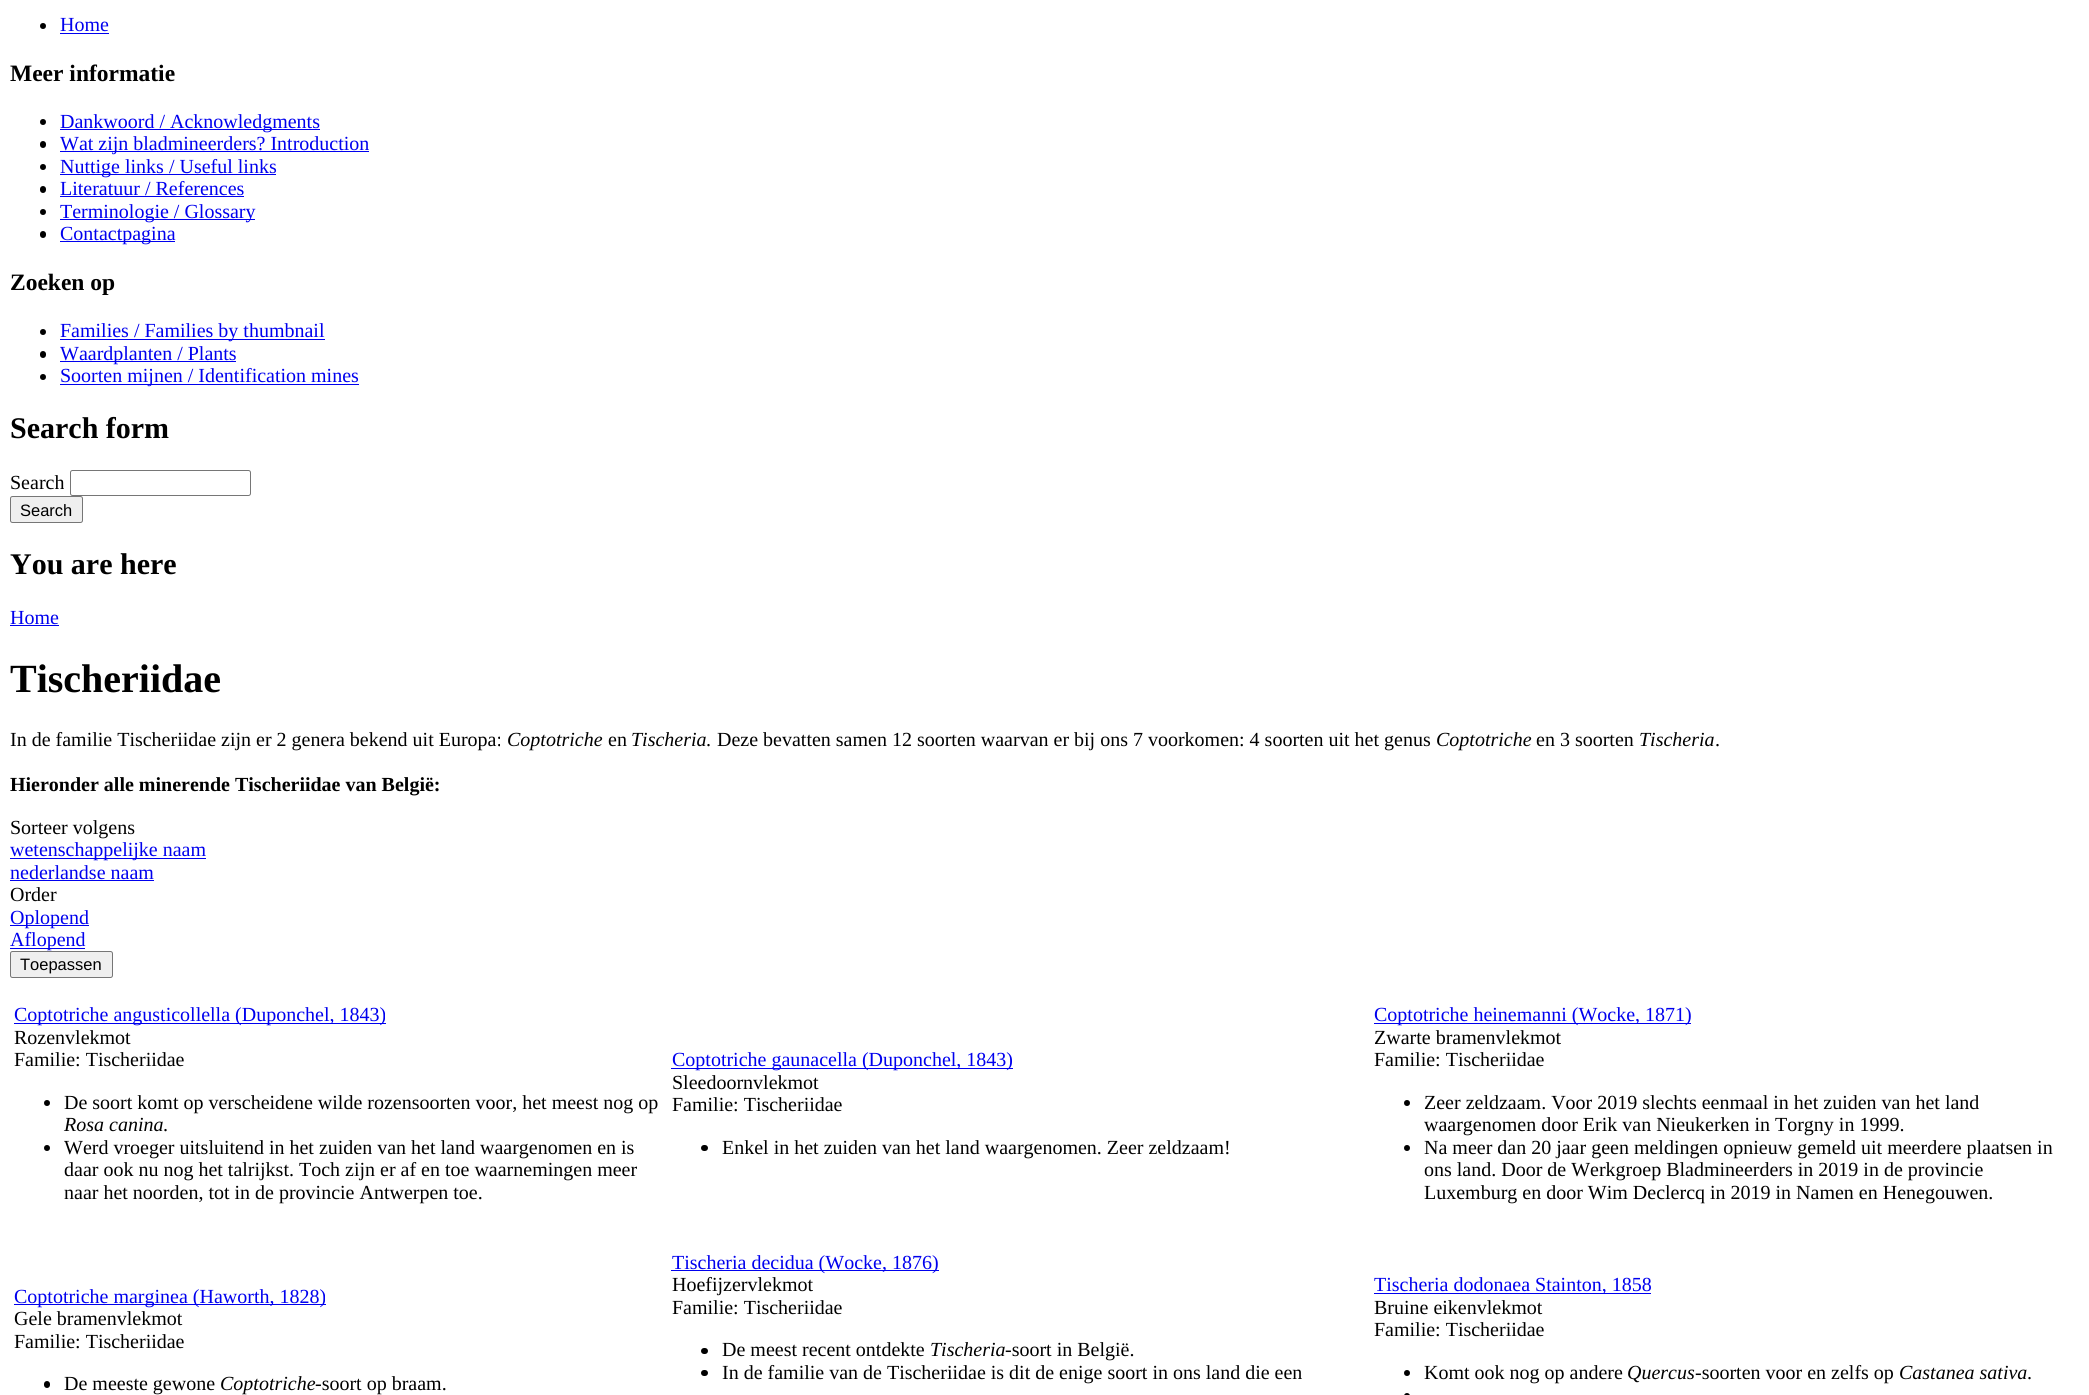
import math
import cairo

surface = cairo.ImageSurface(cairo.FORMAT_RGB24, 2089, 1395)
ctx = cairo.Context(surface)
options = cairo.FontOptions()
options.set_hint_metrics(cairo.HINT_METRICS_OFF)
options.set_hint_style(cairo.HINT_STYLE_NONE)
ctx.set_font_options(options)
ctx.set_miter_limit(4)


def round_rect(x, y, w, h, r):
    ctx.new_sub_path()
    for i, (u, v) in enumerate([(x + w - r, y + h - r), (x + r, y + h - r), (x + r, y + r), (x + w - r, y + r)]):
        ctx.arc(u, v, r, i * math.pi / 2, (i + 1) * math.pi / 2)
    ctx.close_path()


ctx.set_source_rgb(1, 1, 1)
ctx.paint()
ctx.set_source_rgb(0, 0, 0)
ctx.arc(43, 26, 3, 0, 2 * math.pi)
ctx.fill()
ctx.select_font_face("Liberation Serif")
ctx.set_font_size(20)
ctx.set_source_rgb(0, 0, 0.933)
ctx.move_to(60, 31)
ctx.show_text("Home")
ctx.rectangle(60, 33, 49, 1)
ctx.fill()
ctx.select_font_face("Liberation Serif", cairo.FONT_SLANT_NORMAL, cairo.FONT_WEIGHT_BOLD)
ctx.set_font_size(23.5)
ctx.set_source_rgb(0, 0, 0)
ctx.move_to(10, 81)
ctx.show_text("Meer informatie")
ctx.new_path()
ctx.arc(43, 122, 3, 0, 2 * math.pi)
ctx.fill()
ctx.set_source_rgb(0, 0, 0.933)
ctx.rectangle(60, 129, 260, 1)
ctx.fill()
ctx.select_font_face("Liberation Serif")
ctx.set_font_size(20)
ctx.move_to(60, 128)
ctx.show_text("Dankwoord / Acknowledgments")
ctx.set_source_rgb(0, 0, 0)
round_rect(40, 141, 6, 7, 3)
ctx.fill()
ctx.set_source_rgb(0, 0, 0.933)
ctx.rectangle(60, 151, 309, 1)
ctx.fill()
ctx.move_to(60, 150)
ctx.show_text("Wat zijn bladmineerders? Introduction")
ctx.set_source_rgb(0, 0, 0)
ctx.new_path()
ctx.arc(43, 167, 3, 0, 2 * math.pi)
ctx.fill()
ctx.set_source_rgb(0, 0, 0.933)
ctx.rectangle(60, 174, 216, 1)
ctx.fill()
ctx.move_to(60, 173)
ctx.show_text("Nuttige links / Useful links")
ctx.set_source_rgb(0, 0, 0)
round_rect(40, 186, 6, 7, 3)
ctx.fill()
ctx.set_source_rgb(0, 0, 0.933)
ctx.move_to(60, 195)
ctx.show_text("Literatuur / References")
ctx.rectangle(60, 196, 184, 1)
ctx.fill()
ctx.set_source_rgb(0, 0, 0)
ctx.arc(43, 212, 3, 0, 2 * math.pi)
ctx.fill()
ctx.set_source_rgb(0, 0, 0.933)
ctx.rectangle(60, 219, 195, 1)
ctx.fill()
ctx.move_to(60, 218)
ctx.show_text("Terminologie / Glossary")
ctx.set_source_rgb(0, 0, 0)
round_rect(40, 231, 6, 7, 3)
ctx.fill()
ctx.set_source_rgb(0, 0, 0.933)
ctx.rectangle(60, 241, 115, 1)
ctx.fill()
ctx.move_to(60, 240)
ctx.show_text("Contactpagina")
ctx.select_font_face("Liberation Serif", cairo.FONT_SLANT_NORMAL, cairo.FONT_WEIGHT_BOLD)
ctx.set_font_size(23.5)
ctx.set_source_rgb(0, 0, 0)
ctx.move_to(10, 290)
ctx.show_text("Zoeken op")
ctx.new_path()
ctx.arc(43, 332, 3, 0, 2 * math.pi)
ctx.fill()
ctx.set_source_rgb(0, 0, 0.933)
ctx.rectangle(60, 339, 265, 1)
ctx.fill()
ctx.select_font_face("Liberation Serif")
ctx.set_font_size(20)
ctx.move_to(60, 337)
ctx.show_text("Families / Families by thumbnail")
ctx.set_source_rgb(0, 0, 0)
round_rect(40, 351, 6, 7, 3)
ctx.fill()
ctx.set_source_rgb(0, 0, 0.933)
ctx.rectangle(60, 361, 176, 1)
ctx.fill()
ctx.move_to(60, 360)
ctx.show_text("Waardplanten / Plants")
ctx.set_source_rgb(0, 0, 0)
ctx.new_path()
ctx.arc(43, 377, 3, 0, 2 * math.pi)
ctx.fill()
ctx.set_source_rgb(0, 0, 0.933)
ctx.rectangle(60, 384, 299, 1)
ctx.fill()
ctx.move_to(60, 382)
ctx.show_text("Soorten mijnen / Identification mines")
ctx.select_font_face("Liberation Serif", cairo.FONT_SLANT_NORMAL, cairo.FONT_WEIGHT_BOLD)
ctx.set_font_size(30)
ctx.set_source_rgb(0, 0, 0)
ctx.move_to(10, 438)
ctx.show_text("Search form")
ctx.select_font_face("Liberation Serif")
ctx.set_font_size(20)
ctx.move_to(10, 489)
ctx.show_text("Search")
round_rect(70.5, 470.5, 180, 25, 2)
ctx.set_source_rgb(0.463, 0.463, 0.463)
ctx.set_line_width(1)
ctx.stroke()
ctx.set_source_rgb(0.937, 0.937, 0.937)
round_rect(10.5, 496.5, 72, 26, 2)
ctx.fill_preserve()
ctx.set_source_rgb(0.463, 0.463, 0.463)
ctx.stroke()
ctx.select_font_face("Liberation Sans")
ctx.set_font_size(16.5)
ctx.set_source_rgb(0, 0, 0)
ctx.move_to(20, 516)
ctx.show_text("Search")
ctx.select_font_face("Liberation Serif", cairo.FONT_SLANT_NORMAL, cairo.FONT_WEIGHT_BOLD)
ctx.set_font_size(30)
ctx.move_to(10, 574)
ctx.show_text("You are here")
ctx.select_font_face("Liberation Serif")
ctx.set_font_size(20)
ctx.set_source_rgb(0, 0, 0.933)
ctx.move_to(10, 624)
ctx.show_text("Home")
ctx.rectangle(10, 625, 49, 1)
ctx.fill()
ctx.select_font_face("Liberation Serif", cairo.FONT_SLANT_NORMAL, cairo.FONT_WEIGHT_BOLD)
ctx.set_font_size(40)
ctx.set_source_rgb(0, 0, 0)
ctx.move_to(10, 692)
ctx.show_text("Tischeriidae")
ctx.select_font_face("Liberation Serif")
ctx.set_font_size(20)
ctx.move_to(10, 746)
ctx.show_text("In de familie Tischeriidae zijn er 2 genera bekend uit Europa:")
ctx.select_font_face("Liberation Serif", cairo.FONT_SLANT_ITALIC)
ctx.move_to(507, 746)
ctx.show_text("Coptotriche")
ctx.select_font_face("Liberation Serif")
ctx.move_to(608, 746)
ctx.show_text("en")
ctx.select_font_face("Liberation Serif", cairo.FONT_SLANT_ITALIC)
ctx.move_to(631, 746)
ctx.show_text("Tischeria.")
ctx.select_font_face("Liberation Serif")
ctx.move_to(717, 746)
ctx.show_text("Deze bevatten samen 12 soorten waarvan er bij ons 7 voorkomen: 4 soorten uit het genus")
ctx.select_font_face("Liberation Serif", cairo.FONT_SLANT_ITALIC)
ctx.move_to(1436, 746)
ctx.show_text("Coptotriche")
ctx.select_font_face("Liberation Serif")
ctx.move_to(1536, 746)
ctx.show_text("en 3 soorten")
ctx.select_font_face("Liberation Serif", cairo.FONT_SLANT_ITALIC)
ctx.move_to(1639, 746)
ctx.show_text("Tischeria")
ctx.select_font_face("Liberation Serif")
ctx.move_to(1715, 746)
ctx.show_text(".")
ctx.select_font_face("Liberation Serif", cairo.FONT_SLANT_NORMAL, cairo.FONT_WEIGHT_BOLD)
ctx.move_to(10, 791)
ctx.show_text("Hieronder alle minerende Tischeriidae van België:")
ctx.select_font_face("Liberation Serif")
ctx.move_to(10, 834)
ctx.show_text("Sorteer volgens")
ctx.set_source_rgb(0, 0, 0.933)
ctx.rectangle(10, 858, 196, 1)
ctx.fill()
ctx.move_to(10, 856)
ctx.show_text("wetenschappelijke naam")
ctx.move_to(10, 879)
ctx.show_text("nederlandse naam")
ctx.rectangle(10, 880, 144, 1)
ctx.fill()
ctx.set_source_rgb(0, 0, 0)
ctx.move_to(10, 901)
ctx.show_text("Order")
ctx.set_source_rgb(0, 0, 0.933)
ctx.rectangle(10, 925, 79, 1)
ctx.fill()
ctx.move_to(10, 924)
ctx.show_text("Oplopend")
ctx.rectangle(10, 948, 75, 1)
ctx.fill()
ctx.move_to(10, 946)
ctx.show_text("Aflopend")
ctx.set_source_rgb(0.937, 0.937, 0.937)
round_rect(10.5, 951.5, 102, 26, 2)
ctx.fill_preserve()
ctx.set_source_rgb(0.463, 0.463, 0.463)
ctx.stroke()
ctx.select_font_face("Liberation Sans")
ctx.set_font_size(16.5)
ctx.set_source_rgb(0, 0, 0)
ctx.move_to(20, 970)
ctx.show_text("Toepassen")
ctx.set_source_rgb(0, 0, 0.933)
ctx.rectangle(14, 1023, 372, 1)
ctx.fill()
ctx.select_font_face("Liberation Serif")
ctx.set_font_size(20)
ctx.move_to(14, 1021)
ctx.show_text("Coptotriche angusticollella (Duponchel, 1843)")
ctx.set_source_rgb(0, 0, 0)
ctx.move_to(14, 1044)
ctx.show_text("Rozenvlekmot")
ctx.move_to(14, 1066)
ctx.show_text("Familie: Tischeriidae")
ctx.new_path()
ctx.arc(47, 1103, 3, 0, 2 * math.pi)
ctx.fill()
ctx.move_to(64, 1109)
ctx.show_text("De soort komt op verscheidene wilde rozensoorten voor, het meest nog op")
ctx.select_font_face("Liberation Serif", cairo.FONT_SLANT_ITALIC)
ctx.move_to(64, 1131)
ctx.show_text("Rosa canina")
ctx.select_font_face("Liberation Serif")
ctx.move_to(163, 1131)
ctx.show_text(".")
ctx.new_path()
ctx.arc(47, 1148, 3, 0, 2 * math.pi)
ctx.fill()
ctx.move_to(64, 1154)
ctx.show_text("Werd vroeger uitsluitend in het zuiden van het land waargenomen en is")
ctx.move_to(64, 1176)
ctx.show_text("daar ook nu nog het talrijkst. Toch zijn er af en toe waarnemingen meer")
ctx.move_to(64, 1199)
ctx.show_text("naar het noorden, tot in de provincie Antwerpen toe.")
ctx.set_source_rgb(0, 0, 0.933)
ctx.rectangle(671, 1068, 342, 1)
ctx.fill()
ctx.move_to(672, 1066)
ctx.show_text("Coptotriche gaunacella (Duponchel, 1843)")
ctx.set_source_rgb(0, 0, 0)
ctx.move_to(672, 1089)
ctx.show_text("Sleedoornvlekmot")
ctx.move_to(672, 1111)
ctx.show_text("Familie: Tischeriidae")
round_rect(701, 1145, 7, 6, 3)
ctx.fill()
ctx.move_to(722, 1154)
ctx.show_text("Enkel in het zuiden van het land waargenomen. Zeer zeldzaam!")
ctx.set_source_rgb(0, 0, 0.933)
ctx.rectangle(1374, 1023, 317, 1)
ctx.fill()
ctx.move_to(1374, 1021)
ctx.show_text("Coptotriche heinemanni (Wocke, 1871)")
ctx.set_source_rgb(0, 0, 0)
ctx.move_to(1374, 1044)
ctx.show_text("Zwarte bramenvlekmot")
ctx.move_to(1374, 1066)
ctx.show_text("Familie: Tischeriidae")
ctx.new_path()
ctx.arc(1407, 1103, 3, 0, 2 * math.pi)
ctx.fill()
ctx.move_to(1424, 1109)
ctx.show_text("Zeer zeldzaam. Voor 2019 slechts eenmaal in het zuiden van het land")
ctx.move_to(1424, 1131)
ctx.show_text("waargenomen door Erik van Nieukerken in Torgny in 1999.")
ctx.new_path()
ctx.arc(1407, 1148, 3, 0, 2 * math.pi)
ctx.fill()
ctx.move_to(1424, 1154)
ctx.show_text("Na meer dan 20 jaar geen meldingen opnieuw gemeld uit meerdere plaatsen in")
ctx.move_to(1424, 1176)
ctx.show_text("ons land. Door de Werkgroep Bladmineerders in 2019 in de provincie")
ctx.move_to(1424, 1199)
ctx.show_text("Luxemburg en door Wim Declercq in 2019 in Namen en Henegouwen.")
ctx.set_source_rgb(0, 0, 0.933)
ctx.rectangle(14, 1304, 312, 1)
ctx.fill()
ctx.move_to(14, 1303)
ctx.show_text("Coptotriche marginea (Haworth, 1828)")
ctx.set_source_rgb(0, 0, 0)
ctx.move_to(14, 1325)
ctx.show_text("Gele bramenvlekmot")
ctx.move_to(14, 1348)
ctx.show_text("Familie: Tischeriidae")
round_rect(44, 1381, 6, 7, 3)
ctx.fill()
ctx.move_to(64, 1390)
ctx.show_text("De meeste gewone")
ctx.select_font_face("Liberation Serif", cairo.FONT_SLANT_ITALIC)
ctx.move_to(220, 1390)
ctx.show_text("Coptotriche")
ctx.select_font_face("Liberation Serif")
ctx.move_to(315, 1390)
ctx.show_text("-soort op braam.")
ctx.set_source_rgb(0, 0, 0.933)
ctx.rectangle(671, 1270, 268, 1)
ctx.fill()
ctx.move_to(672, 1269)
ctx.show_text("Tischeria decidua (Wocke, 1876)")
ctx.set_source_rgb(0, 0, 0)
ctx.move_to(672, 1291)
ctx.show_text("Hoefijzervlekmot")
ctx.move_to(672, 1314)
ctx.show_text("Familie: Tischeriidae")
round_rect(701, 1348, 7, 6, 3)
ctx.fill()
ctx.move_to(722, 1356)
ctx.show_text("De meest recent ontdekte")
ctx.select_font_face("Liberation Serif", cairo.FONT_SLANT_ITALIC)
ctx.move_to(930, 1356)
ctx.show_text("Tischeria")
ctx.select_font_face("Liberation Serif")
ctx.move_to(1005, 1356)
ctx.show_text("-soort in België.")
round_rect(701, 1370, 7, 6, 3)
ctx.fill()
ctx.move_to(722, 1379)
ctx.show_text("In de familie van de Tischeriidae is dit de enige soort in ons land die een")
ctx.set_source_rgb(0, 0, 0.933)
ctx.rectangle(1374, 1293, 277, 1)
ctx.fill()
ctx.move_to(1374, 1291)
ctx.show_text("Tischeria dodonaea Stainton, 1858")
ctx.set_source_rgb(0, 0, 0)
ctx.move_to(1374, 1314)
ctx.show_text("Bruine eikenvlekmot")
ctx.move_to(1374, 1336)
ctx.show_text("Familie: Tischeriidae")
ctx.new_path()
ctx.arc(1407, 1373, 3, 0, 2 * math.pi)
ctx.fill()
ctx.move_to(1424, 1379)
ctx.show_text("Komt ook nog op andere")
ctx.select_font_face("Liberation Serif", cairo.FONT_SLANT_ITALIC)
ctx.move_to(1627, 1379)
ctx.show_text("Quercus")
ctx.select_font_face("Liberation Serif")
ctx.move_to(1695, 1379)
ctx.show_text("-soorten voor en zelfs op")
ctx.select_font_face("Liberation Serif", cairo.FONT_SLANT_ITALIC)
ctx.move_to(1899, 1379)
ctx.show_text("Castanea sativa")
ctx.select_font_face("Liberation Serif")
ctx.move_to(2027, 1379)
ctx.show_text(".")
round_rect(1404, 1393, 6, 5, 3)
ctx.fill()
surface.write_to_png("page.png")
